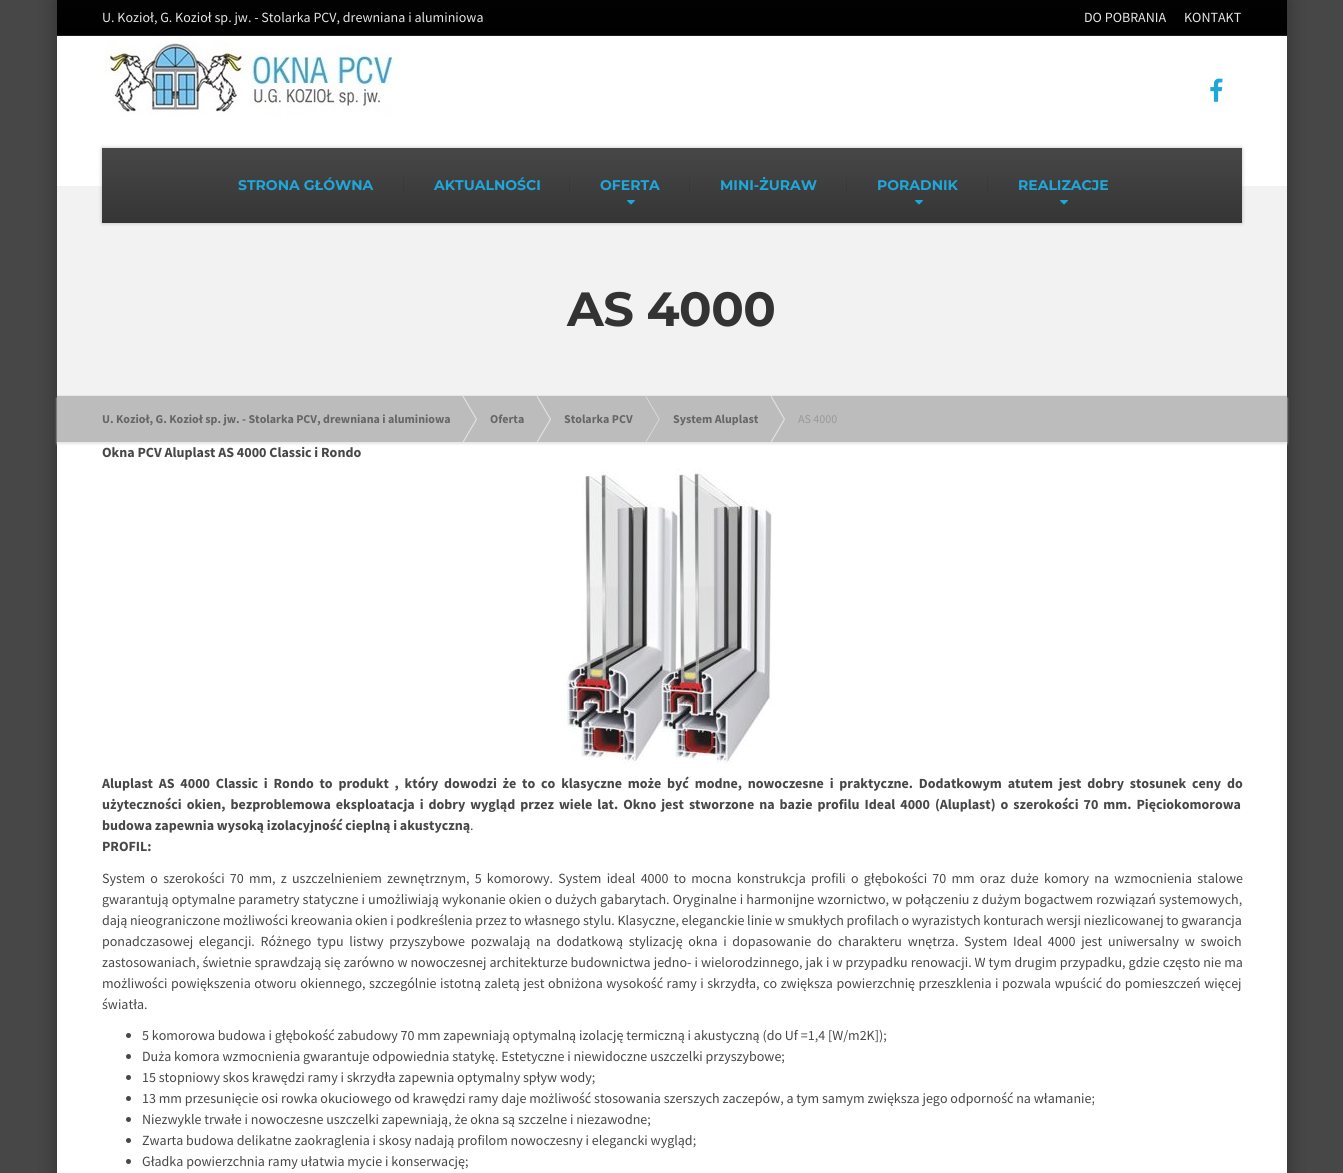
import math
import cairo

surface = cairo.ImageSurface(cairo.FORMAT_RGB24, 1343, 1173)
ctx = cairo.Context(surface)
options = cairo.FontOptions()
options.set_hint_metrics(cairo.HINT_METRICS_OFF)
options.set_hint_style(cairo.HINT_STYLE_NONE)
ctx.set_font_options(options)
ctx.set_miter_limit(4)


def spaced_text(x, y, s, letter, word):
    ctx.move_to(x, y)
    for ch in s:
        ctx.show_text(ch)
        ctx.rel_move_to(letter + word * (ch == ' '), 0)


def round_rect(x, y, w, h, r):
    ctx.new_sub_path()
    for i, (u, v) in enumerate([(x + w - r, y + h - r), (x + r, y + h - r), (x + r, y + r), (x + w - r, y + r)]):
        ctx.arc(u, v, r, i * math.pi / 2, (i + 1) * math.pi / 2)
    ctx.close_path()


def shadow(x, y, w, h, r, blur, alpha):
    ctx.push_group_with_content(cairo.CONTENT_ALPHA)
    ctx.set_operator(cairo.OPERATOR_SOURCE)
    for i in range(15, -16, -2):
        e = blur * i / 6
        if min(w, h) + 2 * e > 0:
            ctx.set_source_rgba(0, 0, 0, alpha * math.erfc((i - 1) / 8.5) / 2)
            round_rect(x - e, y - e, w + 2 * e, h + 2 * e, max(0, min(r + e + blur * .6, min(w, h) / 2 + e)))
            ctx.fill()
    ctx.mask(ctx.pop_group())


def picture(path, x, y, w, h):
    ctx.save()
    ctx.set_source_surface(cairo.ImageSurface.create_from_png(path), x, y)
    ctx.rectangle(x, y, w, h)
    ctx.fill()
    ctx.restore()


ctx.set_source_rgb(0.278, 0.278, 0.278)
ctx.paint()
ctx.set_source_rgb(0, 0, 0)
shadow(57, 0, 1230, 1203, 0, 10, 0.33)
ctx.set_source_rgb(1, 1, 1)
ctx.rectangle(57, 36, 1230, 1137)
ctx.fill()
gradient = cairo.LinearGradient(672, 0, 672, 35)
gradient.add_color_stop_rgba(0, 0.008, 0.008, 0.008, 1)
gradient.add_color_stop_rgba(1, 0, 0, 0, 1)
ctx.set_source(gradient)
ctx.rectangle(57, 0, 1230, 35)
ctx.fill()
ctx.set_source_rgb(0.11, 0.11, 0.11)
ctx.rectangle(57, 35, 1230, 1)
ctx.fill()
ctx.select_font_face("Source Sans Pro")
ctx.set_font_size(14)
ctx.set_source_rgb(0.898, 0.898, 0.898)
ctx.move_to(102, 22)
ctx.show_text("U. Kozioł, G. Kozioł sp. jw. - Stolarka PCV, drewniana i aluminiowa")
ctx.move_to(1084, 22)
ctx.show_text("DO POBRANIA")
ctx.move_to(1184, 22)
ctx.show_text("KONTAKT")
picture("img1.png", 102, 36, 296, 80)
picture("img2.png", 1210, 78, 13, 24)
ctx.set_source_rgb(0.949, 0.949, 0.949)
ctx.rectangle(57, 186, 1230, 209)
ctx.fill()
ctx.set_source_rgb(0, 0, 0)
shadow(102, 148, 1140, 75, 0, 2, 0.25)
gradient = cairo.LinearGradient(672, 148, 672, 223)
gradient.add_color_stop_rgba(0, 0.278, 0.278, 0.278, 1)
gradient.add_color_stop_rgba(1, 0.208, 0.208, 0.208, 1)
ctx.set_source(gradient)
ctx.rectangle(102, 148, 1140, 75)
ctx.fill()
gradient = cairo.LinearGradient(672, 148, 672, 223)
gradient.add_color_stop_rgba(0, 0.255, 0.255, 0.255, 1)
gradient.add_color_stop_rgba(1, 0.192, 0.192, 0.192, 1)
ctx.set_source(gradient)
ctx.rectangle(987, 177, 1, 15)
ctx.fill()
ctx.rectangle(846, 177, 1, 15)
ctx.fill()
ctx.rectangle(689, 177, 1, 15)
ctx.fill()
ctx.rectangle(569, 177, 1, 15)
ctx.fill()
ctx.rectangle(403, 177, 1, 15)
ctx.fill()
ctx.select_font_face("Montserrat Thin")
ctx.set_source_rgb(0.122, 0.655, 0.855)
ctx.move_to(238, 190)
ctx.show_text("STRONA GŁÓWNA")
ctx.move_to(434, 190)
ctx.show_text("AKTUALNOŚCI")
ctx.move_to(600, 190)
ctx.show_text("OFERTA")
picture("img3.png", 627, 200, 8, 5)
ctx.move_to(720, 190)
ctx.show_text("MINI-ŻURAW")
ctx.move_to(877, 190)
ctx.show_text("PORADNIK")
picture("img3.png", 915, 200, 8, 5)
ctx.move_to(1018, 190)
ctx.show_text("REALIZACJE")
picture("img3.png", 1060, 200, 8, 5)
ctx.set_source_rgb(0.902, 0.902, 0.902)
ctx.rectangle(57, 395, 1230, 1)
ctx.fill()
ctx.set_font_size(48)
ctx.set_source_rgb(0.2, 0.2, 0.2)
spaced_text(567, 326, "AS 4000", -0.5, 0)
ctx.set_source_rgb(0.902, 0.902, 0.902)
shadow(57, 398, 1230, 46, 0, 1, 1)
ctx.set_source_rgb(0.737, 0.737, 0.737)
ctx.rectangle(57, 396, 1230, 46)
ctx.fill()
ctx.select_font_face("Source Sans Pro", cairo.FONT_SLANT_NORMAL, cairo.FONT_WEIGHT_BOLD)
ctx.set_font_size(12)
ctx.set_source_rgb(0.4, 0.4, 0.4)
ctx.move_to(102, 423)
ctx.show_text("U. Kozioł, G. Kozioł sp. jw. - Stolarka PCV, drewniana i aluminiowa")
ctx.set_source_rgb(0.886, 0.886, 0.886)
ctx.new_path()
ctx.move_to(462.5, 396.5)
ctx.line_to(463.5, 396)
ctx.line_to(477, 419)
ctx.line_to(476, 419.5)
ctx.close_path()
ctx.fill()
ctx.new_path()
ctx.move_to(476, 419)
ctx.line_to(477, 419.5)
ctx.line_to(463.5, 442.5)
ctx.line_to(462.5, 442)
ctx.close_path()
ctx.fill()
ctx.set_source_rgb(0.4, 0.4, 0.4)
ctx.move_to(490, 423)
ctx.show_text("Oferta")
ctx.set_source_rgb(0.886, 0.886, 0.886)
ctx.new_path()
ctx.move_to(536.5, 396.5)
ctx.line_to(537.5, 396)
ctx.line_to(551, 419)
ctx.line_to(550, 419.5)
ctx.close_path()
ctx.fill()
ctx.new_path()
ctx.move_to(550, 419)
ctx.line_to(551, 419.5)
ctx.line_to(537.5, 442.5)
ctx.line_to(536.5, 442)
ctx.close_path()
ctx.fill()
ctx.set_source_rgb(0.4, 0.4, 0.4)
ctx.move_to(564, 423)
ctx.show_text("Stolarka PCV")
ctx.set_source_rgb(0.886, 0.886, 0.886)
ctx.new_path()
ctx.move_to(645.5, 396.5)
ctx.line_to(646, 396)
ctx.line_to(659.5, 419)
ctx.line_to(659, 419.5)
ctx.close_path()
ctx.fill()
ctx.new_path()
ctx.move_to(659, 419)
ctx.line_to(659.5, 419.5)
ctx.line_to(646, 442.5)
ctx.line_to(645.5, 442)
ctx.close_path()
ctx.fill()
ctx.set_source_rgb(0.4, 0.4, 0.4)
ctx.move_to(673, 423)
ctx.show_text("System Aluplast")
ctx.set_source_rgb(0.886, 0.886, 0.886)
ctx.new_path()
ctx.move_to(770.5, 396.5)
ctx.line_to(771.5, 396)
ctx.line_to(785, 419)
ctx.line_to(784, 419.5)
ctx.close_path()
ctx.fill()
ctx.new_path()
ctx.move_to(784, 419)
ctx.line_to(785, 419.5)
ctx.line_to(771.5, 442.5)
ctx.line_to(770.5, 442)
ctx.close_path()
ctx.fill()
ctx.select_font_face("Source Sans Pro")
ctx.set_source_rgb(0.6, 0.6, 0.6)
ctx.move_to(798, 423)
ctx.show_text("AS 4000")
ctx.select_font_face("Source Sans Pro", cairo.FONT_SLANT_NORMAL, cairo.FONT_WEIGHT_BOLD)
ctx.set_font_size(14)
ctx.set_source_rgb(0.278, 0.278, 0.278)
ctx.move_to(102, 457)
ctx.show_text("Okna PCV Aluplast AS 4000 Classic i Rondo")
picture("img4.png", 564, 468, 208, 296)
spaced_text(102, 788, "Aluplast AS 4000 Classic i Rondo to produkt , który dowodzi że to co klasyczne może być modne, nowoczesne i praktyczne. Dodatkowym atutem jest dobry stosunek ceny do", 0, 3)
spaced_text(102, 809, "użyteczności okien, bezproblemowa eksploatacja i dobry wygląd przez wiele lat. Okno jest stworzone na bazie profilu Ideal 4000 (Aluplast) o szerokości 70 mm. Pięciokomorowa", 0, 2.2)
ctx.move_to(102, 830)
ctx.show_text("budowa zapewnia wysoką izolacyjność cieplną i akustyczną")
ctx.select_font_face("Source Sans Pro")
ctx.move_to(470, 830)
ctx.show_text(".")
ctx.select_font_face("Source Sans Pro", cairo.FONT_SLANT_NORMAL, cairo.FONT_WEIGHT_BOLD)
ctx.move_to(102, 851)
ctx.show_text("PROFIL:")
ctx.select_font_face("Source Sans Pro")
spaced_text(102, 883, "System o szerokości 70 mm, z uszczelnieniem zewnętrznym, 5 komorowy. System ideal 4000 to mocna konstrukcja profili o głębokości 70 mm oraz duże komory na wzmocnienia stalowe", 0, 2.4)
spaced_text(102, 904, "gwarantują optymalne parametry statyczne i umożliwiają wykonanie okien o dużych gabarytach. Oryginalne i harmonijne wzornictwo, w połączeniu z dużym bogactwem rozwiązań systemowych,", 0, 0.25)
spaced_text(102, 925, "dają nieograniczone możliwości kreowania okien i podkreślenia przez to własnego stylu. Klasyczne, eleganckie linie w smukłych profilach o wyrazistych konturach wersji niezlicowanej to gwarancja", 0, -0.2)
spaced_text(102, 946, "ponadczasowej elegancji. Różnego typu listwy przyszybowe pozwalają na dodatkową stylizację okna i dopasowanie do charakteru wnętrza. System Ideal 4000 jest uniwersalny w swoich", 0, 2.9)
spaced_text(102, 967, "zastosowaniach, świetnie sprawdzają się zarówno w nowoczesnej architekturze budownictwa jedno- i wielorodzinnego, jak i w przypadku renowacji. W tym drugim przypadku, gdzie często nie ma", 0, 0.2)
spaced_text(102, 988, "możliwości powiększenia otworu okiennego, szczególnie istotną zaletą jest obniżona wysokość ramy i skrzydła, co zwiększa powierzchnię przeszklenia i pozwala wpuścić do pomieszczeń więcej", 0, 0.75)
ctx.move_to(102, 1009)
ctx.show_text("światła.")
ctx.new_path()
ctx.arc(128.5, 1035.5, 2.5, 0, 2 * math.pi)
ctx.fill()
ctx.move_to(142, 1040)
ctx.show_text("5 komorowa budowa i głębokość zabudowy 70 mm zapewniają optymalną izolację termiczną i akustyczną (do Uf =1,4 [W/m2K]);")
ctx.new_path()
ctx.arc(128.5, 1056.5, 2.5, 0, 2 * math.pi)
ctx.fill()
ctx.move_to(142, 1061)
ctx.show_text("Duża komora wzmocnienia gwarantuje odpowiednia statykę. Estetyczne i niewidoczne uszczelki przyszybowe;")
ctx.new_path()
ctx.arc(128.5, 1077.5, 2.5, 0, 2 * math.pi)
ctx.fill()
ctx.move_to(142, 1082)
ctx.show_text("15 stopniowy skos krawędzi ramy i skrzydła zapewnia optymalny spływ wody;")
ctx.new_path()
ctx.arc(128.5, 1098.5, 2.5, 0, 2 * math.pi)
ctx.fill()
ctx.move_to(142, 1103)
ctx.show_text("13 mm przesunięcie osi rowka okuciowego od krawędzi ramy daje możliwość stosowania szerszych zaczepów, a tym samym zwiększa jego odporność na włamanie;")
ctx.new_path()
ctx.arc(128.5, 1119.5, 2.5, 0, 2 * math.pi)
ctx.fill()
ctx.move_to(142, 1124)
ctx.show_text("Niezwykle trwałe i nowoczesne uszczelki zapewniają, że okna są szczelne i niezawodne;")
ctx.new_path()
ctx.arc(128.5, 1140.5, 2.5, 0, 2 * math.pi)
ctx.fill()
ctx.move_to(142, 1145)
ctx.show_text("Zwarta budowa delikatne zaokraglenia i skosy nadają profilom nowoczesny i elegancki wygląd;")
ctx.new_path()
ctx.arc(128.5, 1161.5, 2.5, 0, 2 * math.pi)
ctx.fill()
ctx.move_to(142, 1166)
ctx.show_text("Gładka powierzchnia ramy ułatwia mycie i konserwację;")
surface.write_to_png("page.png")
